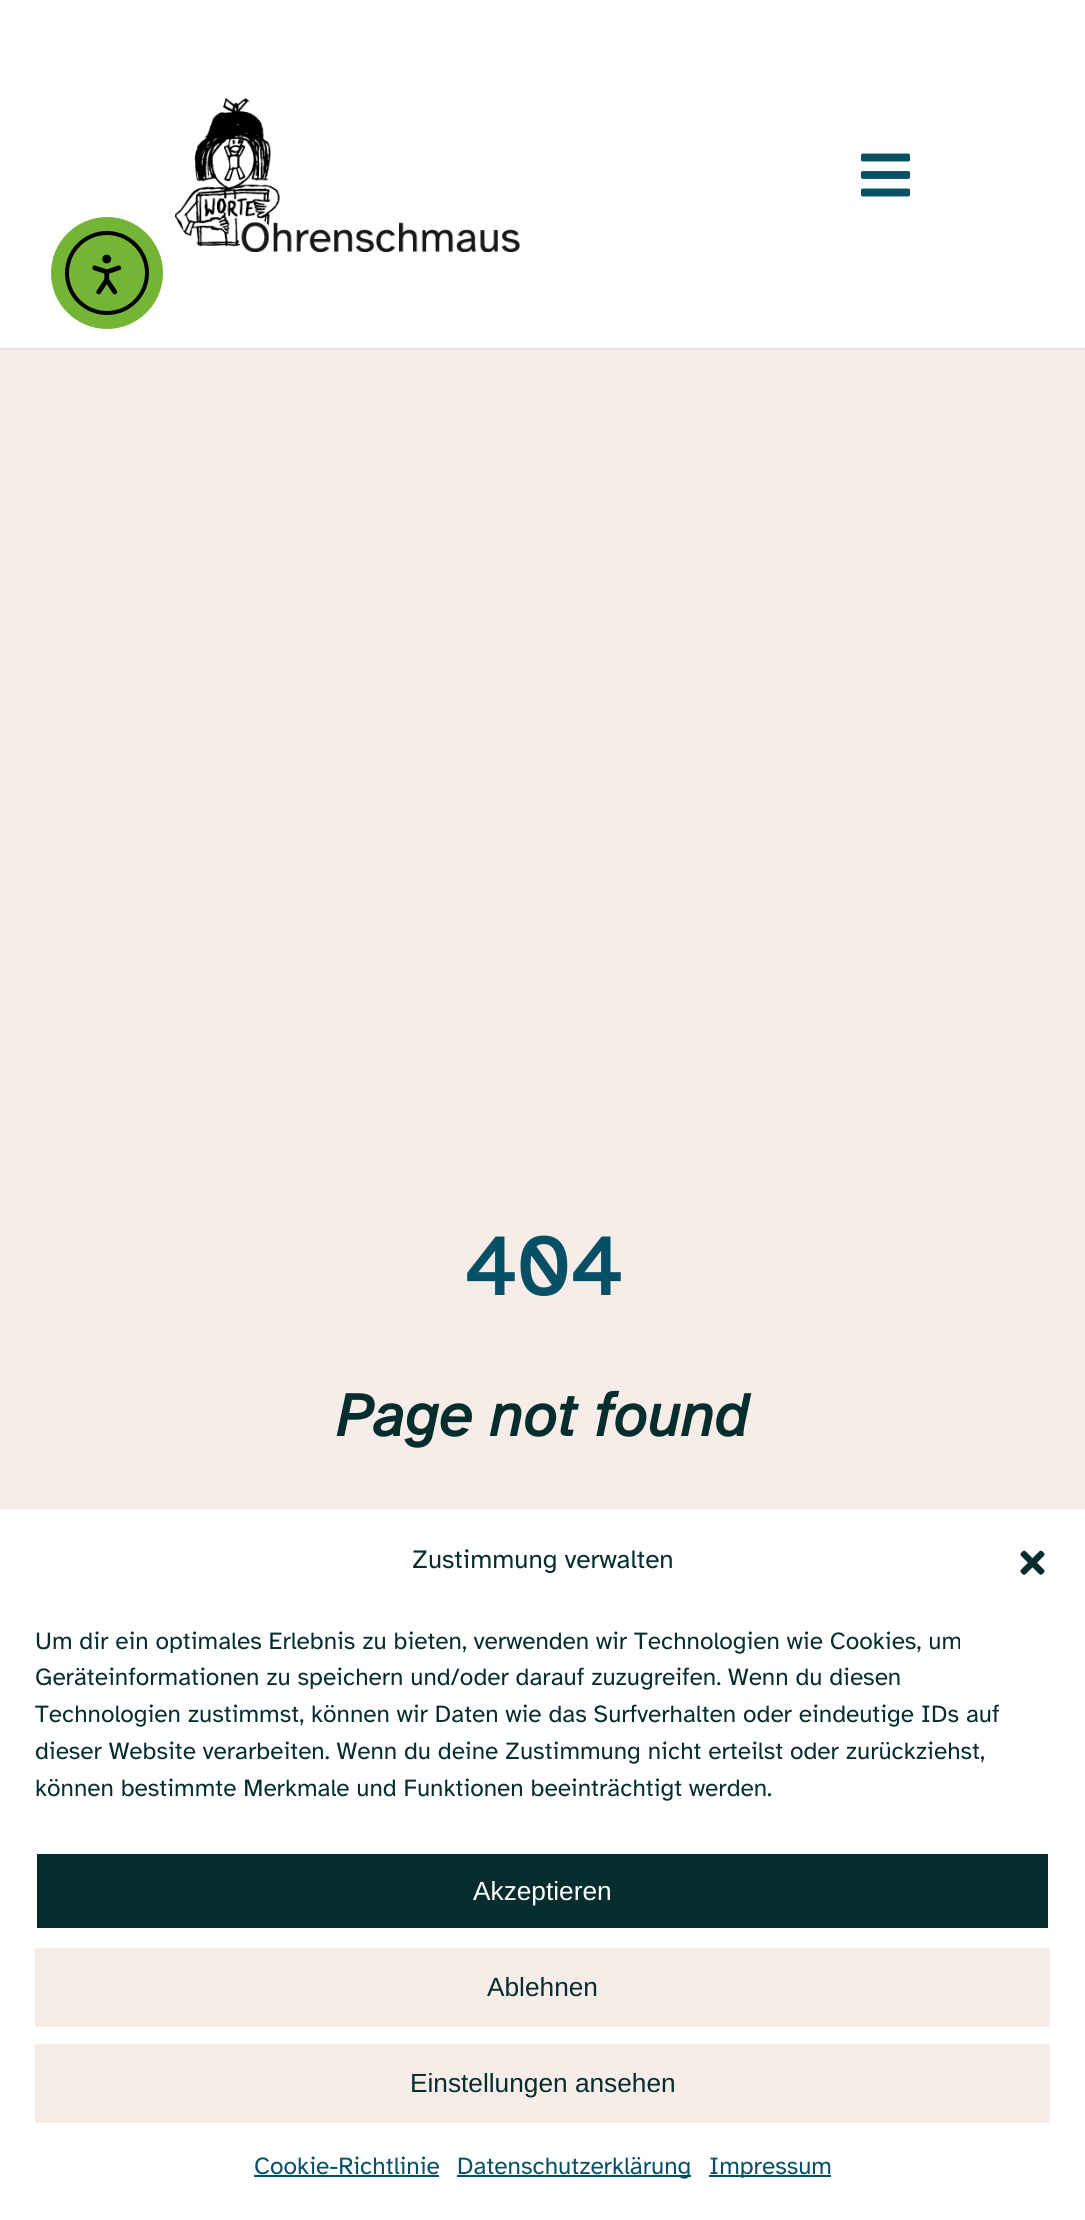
import math
import cairo

surface = cairo.ImageSurface(cairo.FORMAT_RGB24, 1085, 2220)
ctx = cairo.Context(surface)
options = cairo.FontOptions()
options.set_hint_metrics(cairo.HINT_METRICS_OFF)
options.set_hint_style(cairo.HINT_STYLE_NONE)
ctx.set_font_options(options)
ctx.set_miter_limit(4)


def picture(path, x, y, w, h):
    ctx.save()
    ctx.set_source_surface(cairo.ImageSurface.create_from_png(path), x, y)
    ctx.rectangle(x, y, w, h)
    ctx.fill()
    ctx.restore()


ctx.set_source_rgb(0.961, 0.929, 0.91)
ctx.paint()
ctx.set_source_rgb(1, 1, 1)
ctx.rectangle(0, 0, 1085, 348)
ctx.fill()
ctx.set_source_rgb(0.455, 0.71, 0.212)
ctx.arc(107, 273, 56, 0, 2 * math.pi)
ctx.fill()
ctx.arc(107, 273, 40, 0, 2 * math.pi)
ctx.set_source_rgb(0, 0, 0)
ctx.set_line_width(4)
ctx.stroke()
picture("img1.png", 92, 254, 30, 41)
ctx.set_source_rgb(0.882, 0.882, 0.882)
ctx.rectangle(0, 348, 1085, 2)
ctx.fill()
picture("img2.png", 175, 98, 345, 154)
picture("img3.png", 861, 153, 49, 44)
ctx.select_font_face("Atkinson Hyperlegible", cairo.FONT_SLANT_NORMAL, cairo.FONT_WEIGHT_BOLD)
ctx.set_font_size(84)
ctx.set_source_rgb(0.027, 0.314, 0.4)
ctx.move_to(464, 1295)
ctx.show_text("404")
ctx.select_font_face("Atkinson Hyperlegible", cairo.FONT_SLANT_ITALIC, cairo.FONT_WEIGHT_BOLD)
ctx.set_font_size(61.5)
ctx.set_source_rgb(0.02, 0.176, 0.176)
ctx.move_to(336, 1436)
ctx.show_text("Page not found")
ctx.set_source_rgb(1, 1, 1)
ctx.rectangle(0, 1509, 1085, 711)
ctx.fill()
ctx.select_font_face("Atkinson Hyperlegible")
ctx.set_font_size(26.25)
ctx.set_source_rgb(0.02, 0.176, 0.176)
ctx.move_to(412, 1568)
ctx.show_text("Zustimmung verwalten")
picture("img4.png", 1020, 1550, 25, 25)
ctx.set_font_size(24.5)
ctx.move_to(35, 1649)
ctx.show_text("Um dir ein optimales Erlebnis zu bieten, verwenden wir Technologien wie Cookies, um")
ctx.move_to(35, 1685)
ctx.show_text("Geräteinformationen zu speichern und/oder darauf zuzugreifen. Wenn du diesen")
ctx.move_to(35, 1722)
ctx.show_text("Technologien zustimmst, können wir Daten wie das Surfverhalten oder eindeutige IDs auf")
ctx.move_to(35, 1759)
ctx.show_text("dieser Website verarbeiten. Wenn du deine Zustimmung nicht erteilst oder zurückziehst,")
ctx.move_to(35, 1796)
ctx.show_text("können bestimmte Merkmale und Funktionen beeinträchtigt werden.")
ctx.rectangle(37, 1854, 1011, 74)
ctx.fill()
ctx.select_font_face("Liberation Sans")
ctx.set_font_size(26.25)
ctx.set_source_rgb(1, 1, 1)
ctx.move_to(473, 1900)
ctx.show_text("Akzeptieren")
ctx.set_source_rgb(0.961, 0.929, 0.91)
ctx.rectangle(35, 1948, 1015, 79)
ctx.fill()
ctx.set_source_rgb(0.02, 0.176, 0.176)
ctx.move_to(487, 1996)
ctx.show_text("Ablehnen")
ctx.set_source_rgb(0.961, 0.929, 0.91)
ctx.rectangle(35, 2044, 1015, 79)
ctx.fill()
ctx.set_source_rgb(0.02, 0.176, 0.176)
ctx.move_to(410, 2092)
ctx.show_text("Einstellungen ansehen")
ctx.select_font_face("Atkinson Hyperlegible")
ctx.set_font_size(24.5)
ctx.set_source_rgb(0.027, 0.314, 0.4)
ctx.move_to(254, 2174)
ctx.show_text("Cookie-Richtlinie")
ctx.rectangle(254, 2175, 185, 2)
ctx.fill()
ctx.rectangle(457, 2175, 234, 2)
ctx.fill()
ctx.move_to(457, 2174)
ctx.show_text("Datenschutzerklärung")
ctx.rectangle(709, 2175, 122, 2)
ctx.fill()
ctx.move_to(709, 2174)
ctx.show_text("Impressum")
surface.write_to_png("page.png")
